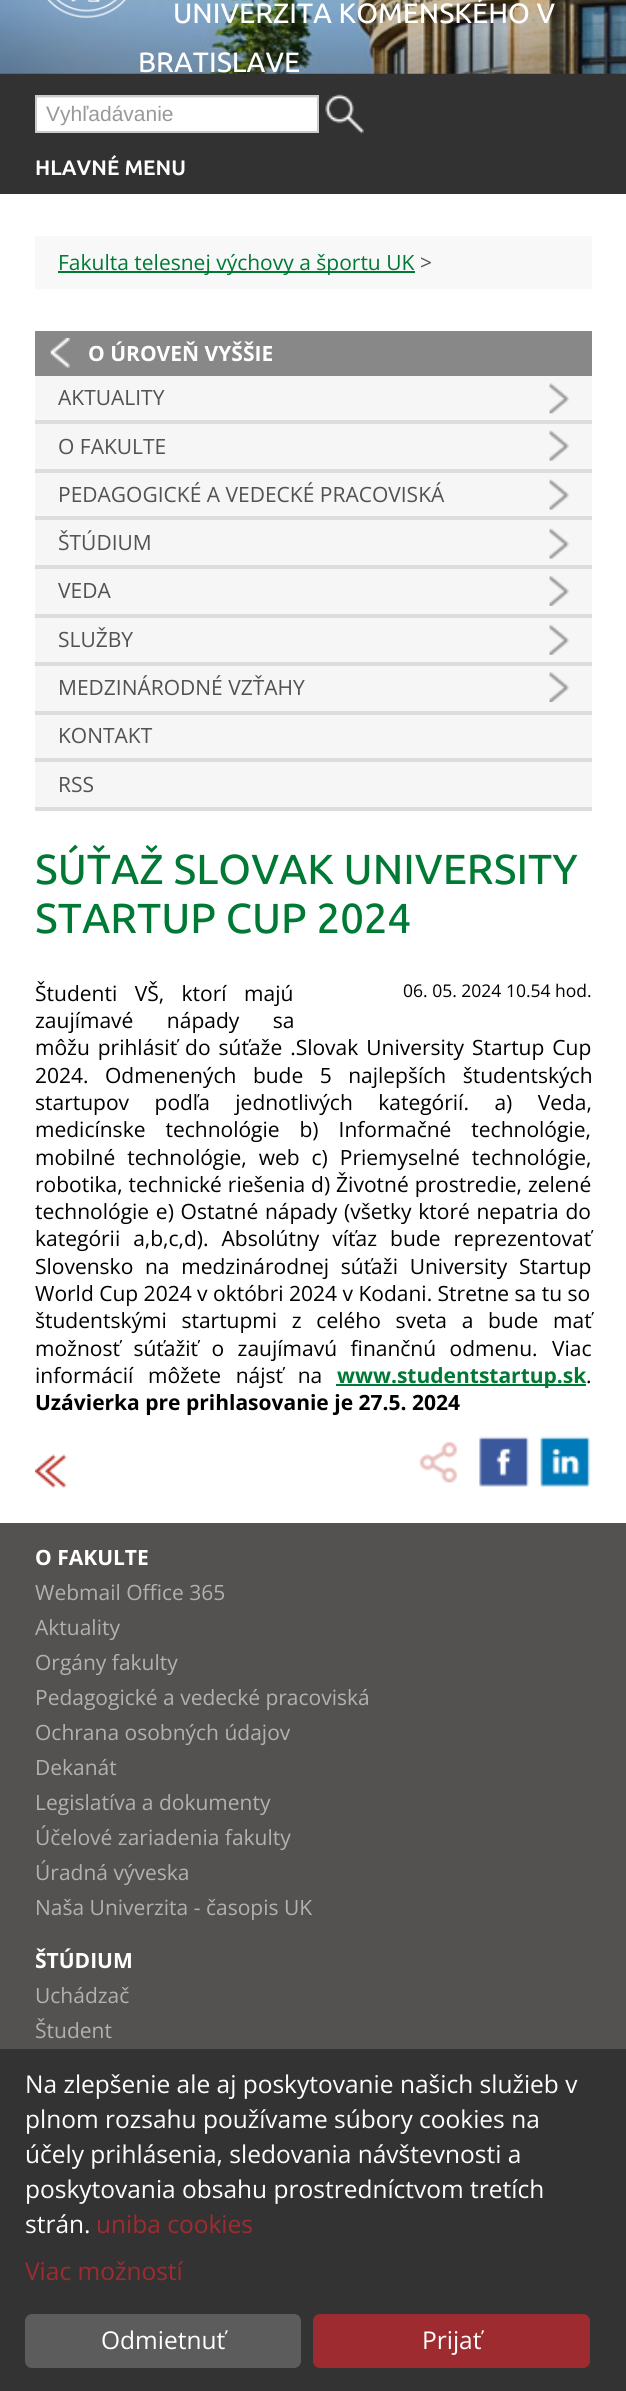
import math
import cairo

surface = cairo.ImageSurface(cairo.FORMAT_RGB24, 626, 2391)
ctx = cairo.Context(surface)
options = cairo.FontOptions()
options.set_hint_metrics(cairo.HINT_METRICS_OFF)
options.set_hint_style(cairo.HINT_STYLE_NONE)
ctx.set_font_options(options)
ctx.set_miter_limit(4)


def spaced_text(x, y, s, letter, word):
    ctx.move_to(x, y)
    for ch in s:
        ctx.show_text(ch)
        ctx.rel_move_to(letter + word * (ch == ' '), 0)


def round_rect(x, y, w, h, r):
    ctx.new_sub_path()
    for i, (u, v) in enumerate([(x + w - r, y + h - r), (x + r, y + h - r), (x + r, y + r), (x + w - r, y + r)]):
        ctx.arc(u, v, r, i * math.pi / 2, (i + 1) * math.pi / 2)
    ctx.close_path()


def picture(path, x, y, w, h):
    ctx.save()
    ctx.set_source_surface(cairo.ImageSurface.create_from_png(path), x, y)
    ctx.rectangle(x, y, w, h)
    ctx.fill()
    ctx.restore()


ctx.set_source_rgb(1, 1, 1)
ctx.paint()
ctx.set_source_rgb(0.196, 0.196, 0.196)
ctx.rectangle(0, 73, 626, 121)
ctx.fill()
picture("img1.png", 0, 0, 626, 74)
picture("img2.png", 47, 0, 80, 18)
ctx.select_font_face("Ubuntu Medium")
ctx.set_font_size(28)
ctx.set_source_rgb(1, 1, 1)
ctx.move_to(173, 23)
ctx.show_text("UNIVERZITA KOMENSKÉHO V")
ctx.move_to(138, 72)
ctx.show_text("BRATISLAVE")
ctx.rectangle(37, 98, 280, 33)
ctx.fill()
ctx.set_source_rgb(0.925, 0.925, 0.925)
ctx.rectangle(37, 97, 280, 1)
ctx.fill()
ctx.rectangle(36, 96, 282, 36)
ctx.set_source_rgb(0.8, 0.8, 0.8)
ctx.stroke()
ctx.select_font_face("Liberation Sans")
ctx.set_font_size(21)
ctx.set_source_rgb(0.6, 0.6, 0.6)
ctx.move_to(46, 121)
ctx.show_text("Vyhľadávanie")
picture("img3.png", 325, 94, 39, 40)
ctx.select_font_face("Ubuntu", cairo.FONT_SLANT_NORMAL, cairo.FONT_WEIGHT_BOLD)
ctx.set_source_rgb(1, 1, 1)
ctx.move_to(35, 175)
ctx.show_text("HLAVNÉ MENU")
ctx.set_source_rgb(0.969, 0.969, 0.969)
ctx.rectangle(35, 236, 557, 53)
ctx.fill()
ctx.set_source_rgb(0, 0.475, 0.204)
ctx.rectangle(58, 271, 357, 2)
ctx.fill()
ctx.select_font_face("Open Sans")
ctx.move_to(58, 270)
ctx.show_text("Fakulta telesnej výchovy a športu UK")
ctx.set_source_rgb(0.325, 0.322, 0.314)
ctx.move_to(420, 270)
ctx.show_text(">")
ctx.set_source_rgb(0.961, 0.961, 0.961)
ctx.rectangle(35, 376, 557, 431)
ctx.fill()
ctx.set_source_rgb(0.533, 0.533, 0.533)
ctx.rectangle(35, 331, 557, 45)
ctx.fill()
picture("img4.png", 50, 338, 20, 30)
ctx.select_font_face("Open Sans", cairo.FONT_SLANT_NORMAL, cairo.FONT_WEIGHT_BOLD)
ctx.set_source_rgb(1, 1, 1)
ctx.move_to(88, 361)
ctx.show_text("O ÚROVEŇ VYŠŠIE")
ctx.set_source_rgb(0.867, 0.867, 0.867)
ctx.rectangle(35, 420, 557, 4)
ctx.fill()
picture("img5.png", 549, 383, 21, 31)
ctx.select_font_face("Open Sans")
ctx.set_source_rgb(0.325, 0.322, 0.314)
ctx.move_to(58, 405)
ctx.show_text("AKTUALITY")
ctx.set_source_rgb(0.867, 0.867, 0.867)
ctx.rectangle(35, 469, 557, 4)
ctx.fill()
picture("img6.png", 549, 430, 21, 31)
ctx.set_source_rgb(0.325, 0.322, 0.314)
ctx.move_to(58, 454)
ctx.show_text("O FAKULTE")
ctx.set_source_rgb(0.867, 0.867, 0.867)
ctx.rectangle(35, 516, 557, 4)
ctx.fill()
picture("img6.png", 549, 479, 21, 31)
ctx.set_source_rgb(0.325, 0.322, 0.314)
ctx.move_to(58, 502)
ctx.show_text("PEDAGOGICKÉ A VEDECKÉ PRACOVISKÁ")
ctx.set_source_rgb(0.867, 0.867, 0.867)
ctx.rectangle(35, 565, 557, 4)
ctx.fill()
picture("img6.png", 549, 528, 21, 31)
ctx.set_source_rgb(0.325, 0.322, 0.314)
ctx.move_to(58, 550)
ctx.show_text("ŠTÚDIUM")
ctx.set_source_rgb(0.867, 0.867, 0.867)
ctx.rectangle(35, 614, 557, 4)
ctx.fill()
picture("img7.png", 549, 576, 21, 30)
ctx.set_source_rgb(0.325, 0.322, 0.314)
ctx.move_to(58, 598)
ctx.show_text("VEDA")
ctx.set_source_rgb(0.867, 0.867, 0.867)
ctx.rectangle(35, 662, 557, 4)
ctx.fill()
picture("img7.png", 549, 625, 21, 30)
ctx.set_source_rgb(0.325, 0.322, 0.314)
ctx.move_to(58, 647)
ctx.show_text("SLUŽBY")
ctx.set_source_rgb(0.867, 0.867, 0.867)
ctx.rectangle(35, 711, 557, 4)
ctx.fill()
picture("img8.png", 549, 672, 21, 30)
ctx.set_source_rgb(0.325, 0.322, 0.314)
ctx.move_to(58, 695)
ctx.show_text("MEDZINÁRODNÉ VZŤAHY")
ctx.set_source_rgb(0.867, 0.867, 0.867)
ctx.rectangle(35, 758, 557, 4)
ctx.fill()
ctx.set_source_rgb(0.325, 0.322, 0.314)
ctx.move_to(58, 743)
ctx.show_text("KONTAKT")
ctx.set_source_rgb(0.867, 0.867, 0.867)
ctx.rectangle(35, 807, 557, 4)
ctx.fill()
ctx.set_source_rgb(0.325, 0.322, 0.314)
ctx.move_to(58, 792)
ctx.show_text("RSS")
ctx.select_font_face("Ubuntu Medium")
ctx.set_font_size(42)
ctx.set_source_rgb(0, 0.475, 0.204)
ctx.move_to(35, 884)
ctx.show_text("SÚŤAŽ SLOVAK UNIVERSITY")
ctx.move_to(35, 933)
ctx.show_text("STARTUP CUP 2024")
ctx.select_font_face("Open Sans")
ctx.set_font_size(21)
ctx.set_source_rgb(0, 0, 0)
spaced_text(35, 1001, "Študenti VŠ, ktorí majú", 0, 12)
spaced_text(35, 1028, "zaujímavé nápady sa", 0, 28)
spaced_text(35, 1055, "môžu prihlásiť do súťaže .Slovak University Startup Cup", 0, 2.5)
spaced_text(35, 1083, "2024. Odmenených bude 5 najlepších študentských", 0, 11)
spaced_text(35, 1110, "startupov podľa jednotlivých kategórií. a) Veda,", 0, 20)
spaced_text(35, 1137, "medicínske technológie b) Informačné technológie,", 0, 14.5)
spaced_text(35, 1165, "mobilné technológie, web c) Priemyselné technológie,", 0, 6.5)
spaced_text(35, 1192, "robotika, technické riešenia d) Životné prostredie, zelené", 0, 0.5)
spaced_text(35, 1219, "technológie e) Ostatné nápady (všetky ktoré nepatria do", 0, 1.25)
spaced_text(35, 1246, "kategórii a,b,c,d). Absolútny víťaz bude reprezentovať", 0, 7.5)
spaced_text(35, 1274, "Slovensko na medzinárodnej súťaži University Startup", 0, 6.25)
ctx.move_to(35, 1301)
ctx.show_text("World Cup 2024 v októbri 2024 v Kodani. Stretne sa tu so")
spaced_text(35, 1328, "študentskými startupmi z celého sveta a bude mať", 0, 9.25)
spaced_text(35, 1356, "možnosť súťažiť o zaujímavú finančnú odmenu.", 0, 8)
ctx.move_to(552, 1356)
ctx.show_text("Viac")
spaced_text(35, 1383, "informácií môžete nájsť na", 0, 9.25)
ctx.set_source_rgb(0, 0.475, 0.204)
ctx.rectangle(336, 1384, 250, 2)
ctx.fill()
ctx.select_font_face("Open Sans", cairo.FONT_SLANT_NORMAL, cairo.FONT_WEIGHT_BOLD)
ctx.move_to(337, 1383)
ctx.show_text("www.studentstartup.sk")
ctx.select_font_face("Open Sans")
ctx.set_source_rgb(0, 0, 0)
ctx.move_to(586, 1383)
ctx.show_text(".")
ctx.select_font_face("Open Sans", cairo.FONT_SLANT_NORMAL, cairo.FONT_WEIGHT_BOLD)
ctx.move_to(35, 1410)
ctx.show_text("Uzávierka pre prihlasovanie je 27.5. 2024")
ctx.select_font_face("Open Sans")
ctx.set_font_size(17.5)
ctx.move_to(403, 997)
ctx.show_text("06. 05. 2024 10.54 hod.")
picture("img9.png", 35, 1454, 32, 34)
picture("img10.png", 419, 1441, 39, 42)
picture("img11.png", 479, 1436, 50, 51)
picture("img12.png", 540, 1436, 51, 51)
ctx.set_source_rgb(0.325, 0.322, 0.314)
ctx.rectangle(0, 1523, 626, 526)
ctx.fill()
ctx.select_font_face("Open Sans", cairo.FONT_SLANT_NORMAL, cairo.FONT_WEIGHT_BOLD)
ctx.set_font_size(21)
ctx.set_source_rgb(1, 1, 1)
ctx.move_to(35, 1565)
ctx.show_text("O FAKULTE")
ctx.select_font_face("Open Sans")
ctx.set_source_rgb(0.694, 0.694, 0.694)
ctx.move_to(35, 1600)
ctx.show_text("Webmail Office 365")
ctx.move_to(35, 1635)
ctx.show_text("Aktuality")
ctx.move_to(35, 1670)
ctx.show_text("Orgány fakulty")
ctx.move_to(35, 1705)
ctx.show_text("Pedagogické a vedecké pracoviská")
ctx.move_to(35, 1740)
ctx.show_text("Ochrana osobných údajov")
ctx.move_to(35, 1775)
ctx.show_text("Dekanát")
ctx.move_to(35, 1810)
ctx.show_text("Legislatíva a dokumenty")
ctx.move_to(35, 1845)
ctx.show_text("Účelové zariadenia fakulty")
ctx.move_to(35, 1880)
ctx.show_text("Úradná výveska")
ctx.move_to(35, 1915)
ctx.show_text("Naša Univerzita - časopis UK")
ctx.select_font_face("Open Sans", cairo.FONT_SLANT_NORMAL, cairo.FONT_WEIGHT_BOLD)
ctx.set_source_rgb(1, 1, 1)
ctx.move_to(35, 1968)
ctx.show_text("ŠTÚDIUM")
ctx.select_font_face("Open Sans")
ctx.set_source_rgb(0.694, 0.694, 0.694)
ctx.move_to(35, 2003)
ctx.show_text("Uchádzač")
ctx.move_to(35, 2038)
ctx.show_text("Študent")
ctx.set_source_rgb(0.2, 0.2, 0.2)
ctx.rectangle(0, 2049, 626, 342)
ctx.fill()
ctx.set_font_size(24.5)
ctx.set_source_rgb(1, 1, 1)
ctx.move_to(25, 2093)
ctx.show_text("Na zlepšenie ale aj poskytovanie našich služieb v")
ctx.move_to(25, 2128)
ctx.show_text("plnom rozsahu používame súbory cookies na")
ctx.move_to(25, 2163)
ctx.show_text("účely prihlásenia, sledovania návštevnosti a")
ctx.move_to(25, 2198)
ctx.show_text("poskytovania obsahu prostredníctvom tretích")
ctx.move_to(25, 2233)
ctx.show_text("strán.")
ctx.set_source_rgb(0.62, 0.169, 0.184)
ctx.move_to(96, 2233)
ctx.show_text("uniba cookies")
ctx.move_to(25, 2280)
ctx.show_text("Viac možností")
ctx.set_source_rgb(0.361, 0.361, 0.361)
round_rect(25, 2314, 276, 54, 7)
ctx.fill()
ctx.set_source_rgb(1, 1, 1)
ctx.move_to(101, 2349)
ctx.show_text("Odmietnuť")
ctx.set_source_rgb(0.62, 0.169, 0.184)
round_rect(313, 2314, 277, 54, 7)
ctx.fill()
ctx.set_source_rgb(1, 1, 1)
ctx.move_to(422, 2349)
ctx.show_text("Prijať")
surface.write_to_png("page.png")
